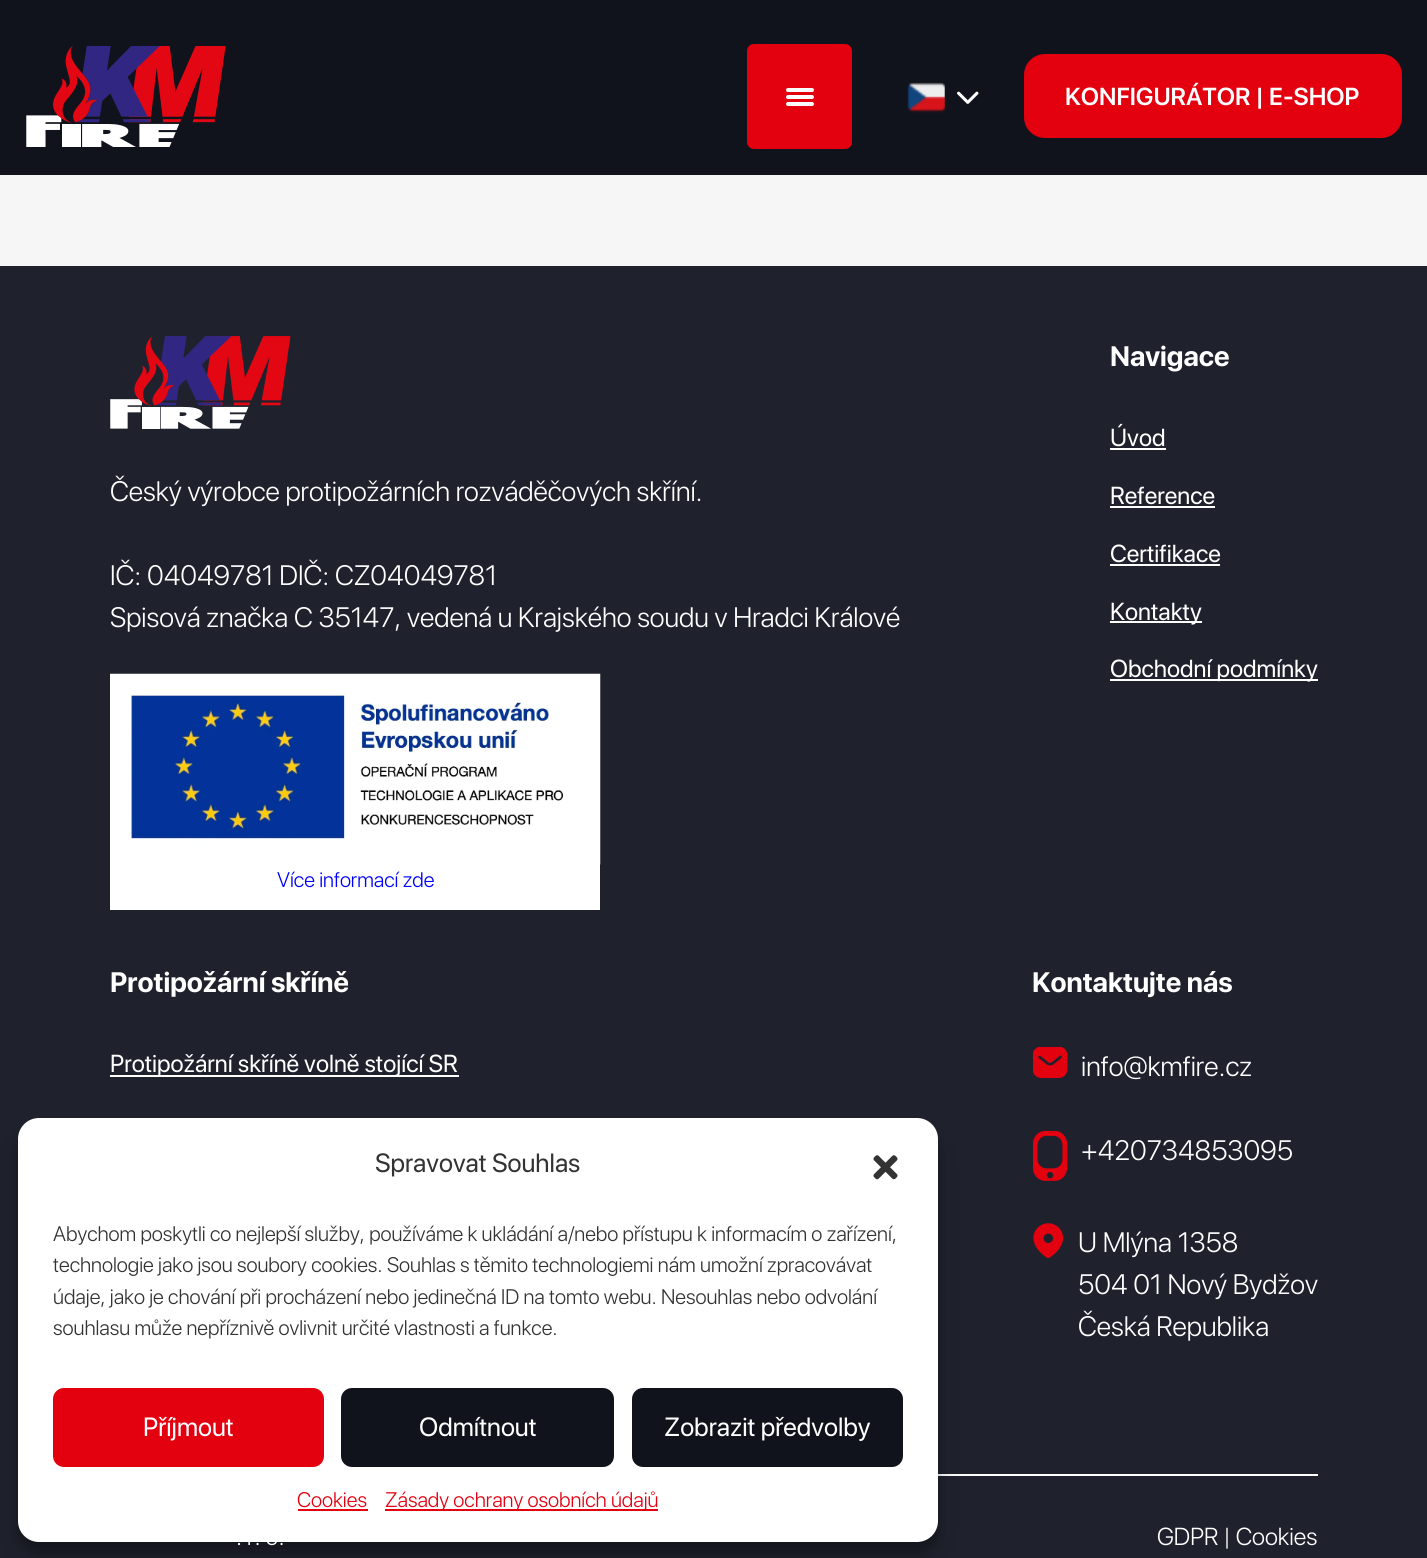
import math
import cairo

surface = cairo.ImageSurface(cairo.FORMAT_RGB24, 1427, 1558)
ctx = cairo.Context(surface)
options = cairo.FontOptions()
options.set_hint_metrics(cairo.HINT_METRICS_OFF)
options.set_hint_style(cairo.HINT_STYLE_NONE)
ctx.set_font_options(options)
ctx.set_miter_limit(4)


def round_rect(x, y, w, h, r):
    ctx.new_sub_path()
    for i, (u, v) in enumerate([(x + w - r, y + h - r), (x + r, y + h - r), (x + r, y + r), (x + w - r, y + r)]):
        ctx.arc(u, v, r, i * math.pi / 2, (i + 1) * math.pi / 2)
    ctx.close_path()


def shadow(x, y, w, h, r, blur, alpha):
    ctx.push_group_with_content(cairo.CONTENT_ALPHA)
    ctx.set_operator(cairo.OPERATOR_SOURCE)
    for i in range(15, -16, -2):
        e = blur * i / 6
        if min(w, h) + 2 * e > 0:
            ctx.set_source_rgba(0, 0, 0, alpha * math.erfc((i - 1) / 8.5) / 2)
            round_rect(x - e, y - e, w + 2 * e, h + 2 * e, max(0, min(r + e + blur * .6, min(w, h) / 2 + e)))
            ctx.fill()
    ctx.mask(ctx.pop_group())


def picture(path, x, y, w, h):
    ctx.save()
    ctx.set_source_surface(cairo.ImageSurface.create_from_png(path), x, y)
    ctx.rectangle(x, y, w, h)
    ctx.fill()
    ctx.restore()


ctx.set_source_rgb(0.961, 0.961, 0.961)
ctx.paint()
ctx.set_source_rgb(0.067, 0.078, 0.11)
ctx.rectangle(0, 0, 1427, 175)
ctx.fill()
picture("img1.png", 26, 46, 200, 101)
ctx.set_source_rgb(0.89, 0, 0.059)
round_rect(747, 44, 105, 105, 7)
ctx.fill()
ctx.set_source_rgb(1, 1, 1)
round_rect(786, 88, 28, 4, 2)
ctx.fill()
round_rect(786, 95, 28, 4, 2)
ctx.fill()
round_rect(786, 102, 28, 4, 2)
ctx.fill()
picture("img2.png", 907, 82, 38, 31)
picture("img3.png", 957, 91, 22, 13)
ctx.set_source_rgb(0.89, 0, 0.059)
round_rect(1024, 54, 378, 84, 21)
ctx.fill()
ctx.select_font_face("SF Pro Display SemiBold")
ctx.set_font_size(24.5)
ctx.set_source_rgb(1, 1, 1)
ctx.move_to(1065, 105)
ctx.show_text("KONFIGURÁTOR | E-SHOP")
ctx.set_source_rgb(0.122, 0.133, 0.176)
ctx.rectangle(0, 266, 1427, 1292)
ctx.fill()
picture("img4.png", 110, 336, 181, 93)
ctx.select_font_face("SF Pro Display Light")
ctx.set_font_size(28)
ctx.set_source_rgb(1, 1, 1)
ctx.move_to(110, 501)
ctx.show_text("Český výrobce protipožárních rozváděčových skříní.")
ctx.move_to(110, 585)
ctx.show_text("IČ: 04049781 DIČ: CZ04049781")
ctx.move_to(110, 627)
ctx.show_text("Spisová značka C 35147, vedená u Krajského soudu v Hradci Králové")
ctx.rectangle(110, 674, 490, 236)
ctx.fill()
picture("img5.png", 110, 673, 491, 192)
ctx.set_font_size(21)
ctx.set_source_rgb(0, 0, 1)
ctx.move_to(277, 887)
ctx.show_text("Více informací zde")
ctx.select_font_face("SF Pro Display", cairo.FONT_SLANT_NORMAL, cairo.FONT_WEIGHT_BOLD)
ctx.set_font_size(28)
ctx.set_source_rgb(1, 1, 1)
ctx.move_to(1110, 366)
ctx.show_text("Navigace")
ctx.select_font_face("SF Pro Display")
ctx.set_font_size(24.5)
ctx.move_to(1110, 446)
ctx.show_text("Úvod")
ctx.rectangle(1110, 448, 56, 2)
ctx.fill()
ctx.move_to(1110, 504)
ctx.show_text("Reference")
ctx.rectangle(1110, 506, 105, 2)
ctx.fill()
ctx.move_to(1110, 562)
ctx.show_text("Certifikace")
ctx.rectangle(1110, 564, 110, 2)
ctx.fill()
ctx.rectangle(1110, 621, 92, 2)
ctx.fill()
ctx.move_to(1110, 620)
ctx.show_text("Kontakty")
ctx.rectangle(1110, 679, 208, 2)
ctx.fill()
ctx.move_to(1110, 677)
ctx.show_text("Obchodní podmínky")
ctx.select_font_face("SF Pro Display", cairo.FONT_SLANT_NORMAL, cairo.FONT_WEIGHT_BOLD)
ctx.set_font_size(28)
ctx.move_to(110, 992)
ctx.show_text("Protipožární skříně")
ctx.rectangle(110, 1075, 349, 2)
ctx.fill()
ctx.select_font_face("SF Pro Display")
ctx.set_font_size(24.5)
ctx.move_to(110, 1072)
ctx.show_text("Protipožární skříně volně stojící SR")
ctx.select_font_face("SF Pro Display", cairo.FONT_SLANT_NORMAL, cairo.FONT_WEIGHT_BOLD)
ctx.set_font_size(28)
ctx.move_to(1032, 992)
ctx.show_text("Kontaktujte nás")
picture("img6.png", 1033, 1047, 35, 31)
ctx.select_font_face("SF Pro Display Light")
ctx.move_to(1081, 1076)
ctx.show_text("info@kmfire.cz")
picture("img7.png", 1033, 1131, 35, 50)
ctx.move_to(1081, 1160)
ctx.show_text("+420734853095")
picture("img8.png", 1033, 1223, 31, 35)
ctx.move_to(1078, 1252)
ctx.show_text("U Mlýna 1358")
ctx.move_to(1078, 1294)
ctx.show_text("504 01 Nový Bydžov")
ctx.move_to(1078, 1336)
ctx.show_text("Česká Republika")
ctx.rectangle(938, 1474, 380, 2)
ctx.fill()
ctx.set_source_rgb(0, 0, 0)
shadow(18, 1129, 920, 423, 21, 5, 0.23)
shadow(18, 1136, 920, 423, 21, 17.5, 0.19)
ctx.set_source_rgb(1, 1, 1)
round_rect(18, 1118, 920, 424, 21)
ctx.fill()
ctx.select_font_face("SF Pro Display")
ctx.set_font_size(26.25)
ctx.set_source_rgb(0.2, 0.2, 0.2)
ctx.move_to(375, 1172)
ctx.show_text("Spravovat Souhlas")
picture("img9.png", 873, 1155, 25, 25)
ctx.select_font_face("SF Pro Display Light")
ctx.set_font_size(21)
ctx.move_to(53, 1241)
ctx.show_text("Abychom poskytli co nejlepší služby, používáme k ukládání a/nebo přístupu k informacím o zařízení,")
ctx.move_to(53, 1272)
ctx.show_text("technologie jako jsou soubory cookies. Souhlas s těmito technologiemi nám umožní zpracovávat")
ctx.move_to(53, 1304)
ctx.show_text("údaje, jako je chování při procházení nebo jedinečná ID na tomto webu. Nesouhlas nebo odvolání")
ctx.move_to(53, 1335)
ctx.show_text("souhlasu může nepříznivě ovlivnit určité vlastnosti a funkce.")
ctx.set_source_rgb(0.89, 0, 0.059)
round_rect(54, 1389, 269, 77, 10)
ctx.fill_preserve()
ctx.stroke()
ctx.select_font_face("SF Pro Display")
ctx.set_font_size(26.25)
ctx.set_source_rgb(1, 1, 1)
ctx.move_to(143, 1436)
ctx.show_text("Příjmout")
ctx.set_source_rgb(0.067, 0.078, 0.11)
round_rect(342, 1389, 271, 77, 10)
ctx.fill_preserve()
ctx.stroke()
ctx.set_source_rgb(1, 1, 1)
ctx.move_to(419, 1436)
ctx.show_text("Odmítnout")
ctx.set_source_rgb(0.067, 0.078, 0.11)
round_rect(633, 1389, 269, 77, 10)
ctx.fill_preserve()
ctx.stroke()
ctx.set_source_rgb(1, 1, 1)
ctx.move_to(664, 1436)
ctx.show_text("Zobrazit předvolby")
ctx.select_font_face("SF Pro Display Light")
ctx.set_font_size(21)
ctx.set_source_rgb(0.89, 0, 0.059)
ctx.move_to(297, 1507)
ctx.show_text("Cookies")
ctx.rectangle(298, 1509, 70, 2)
ctx.fill()
ctx.rectangle(385, 1509, 273, 2)
ctx.fill()
ctx.move_to(385, 1507)
ctx.show_text("Zásady ochrany osobních údajů")
ctx.set_font_size(24.5)
ctx.set_source_rgb(1, 1, 1)
ctx.move_to(236, 1545)
ctx.show_text(". r. o.")
ctx.move_to(1157, 1545)
ctx.show_text("GDPR | Cookies")
surface.write_to_png("page.png")
